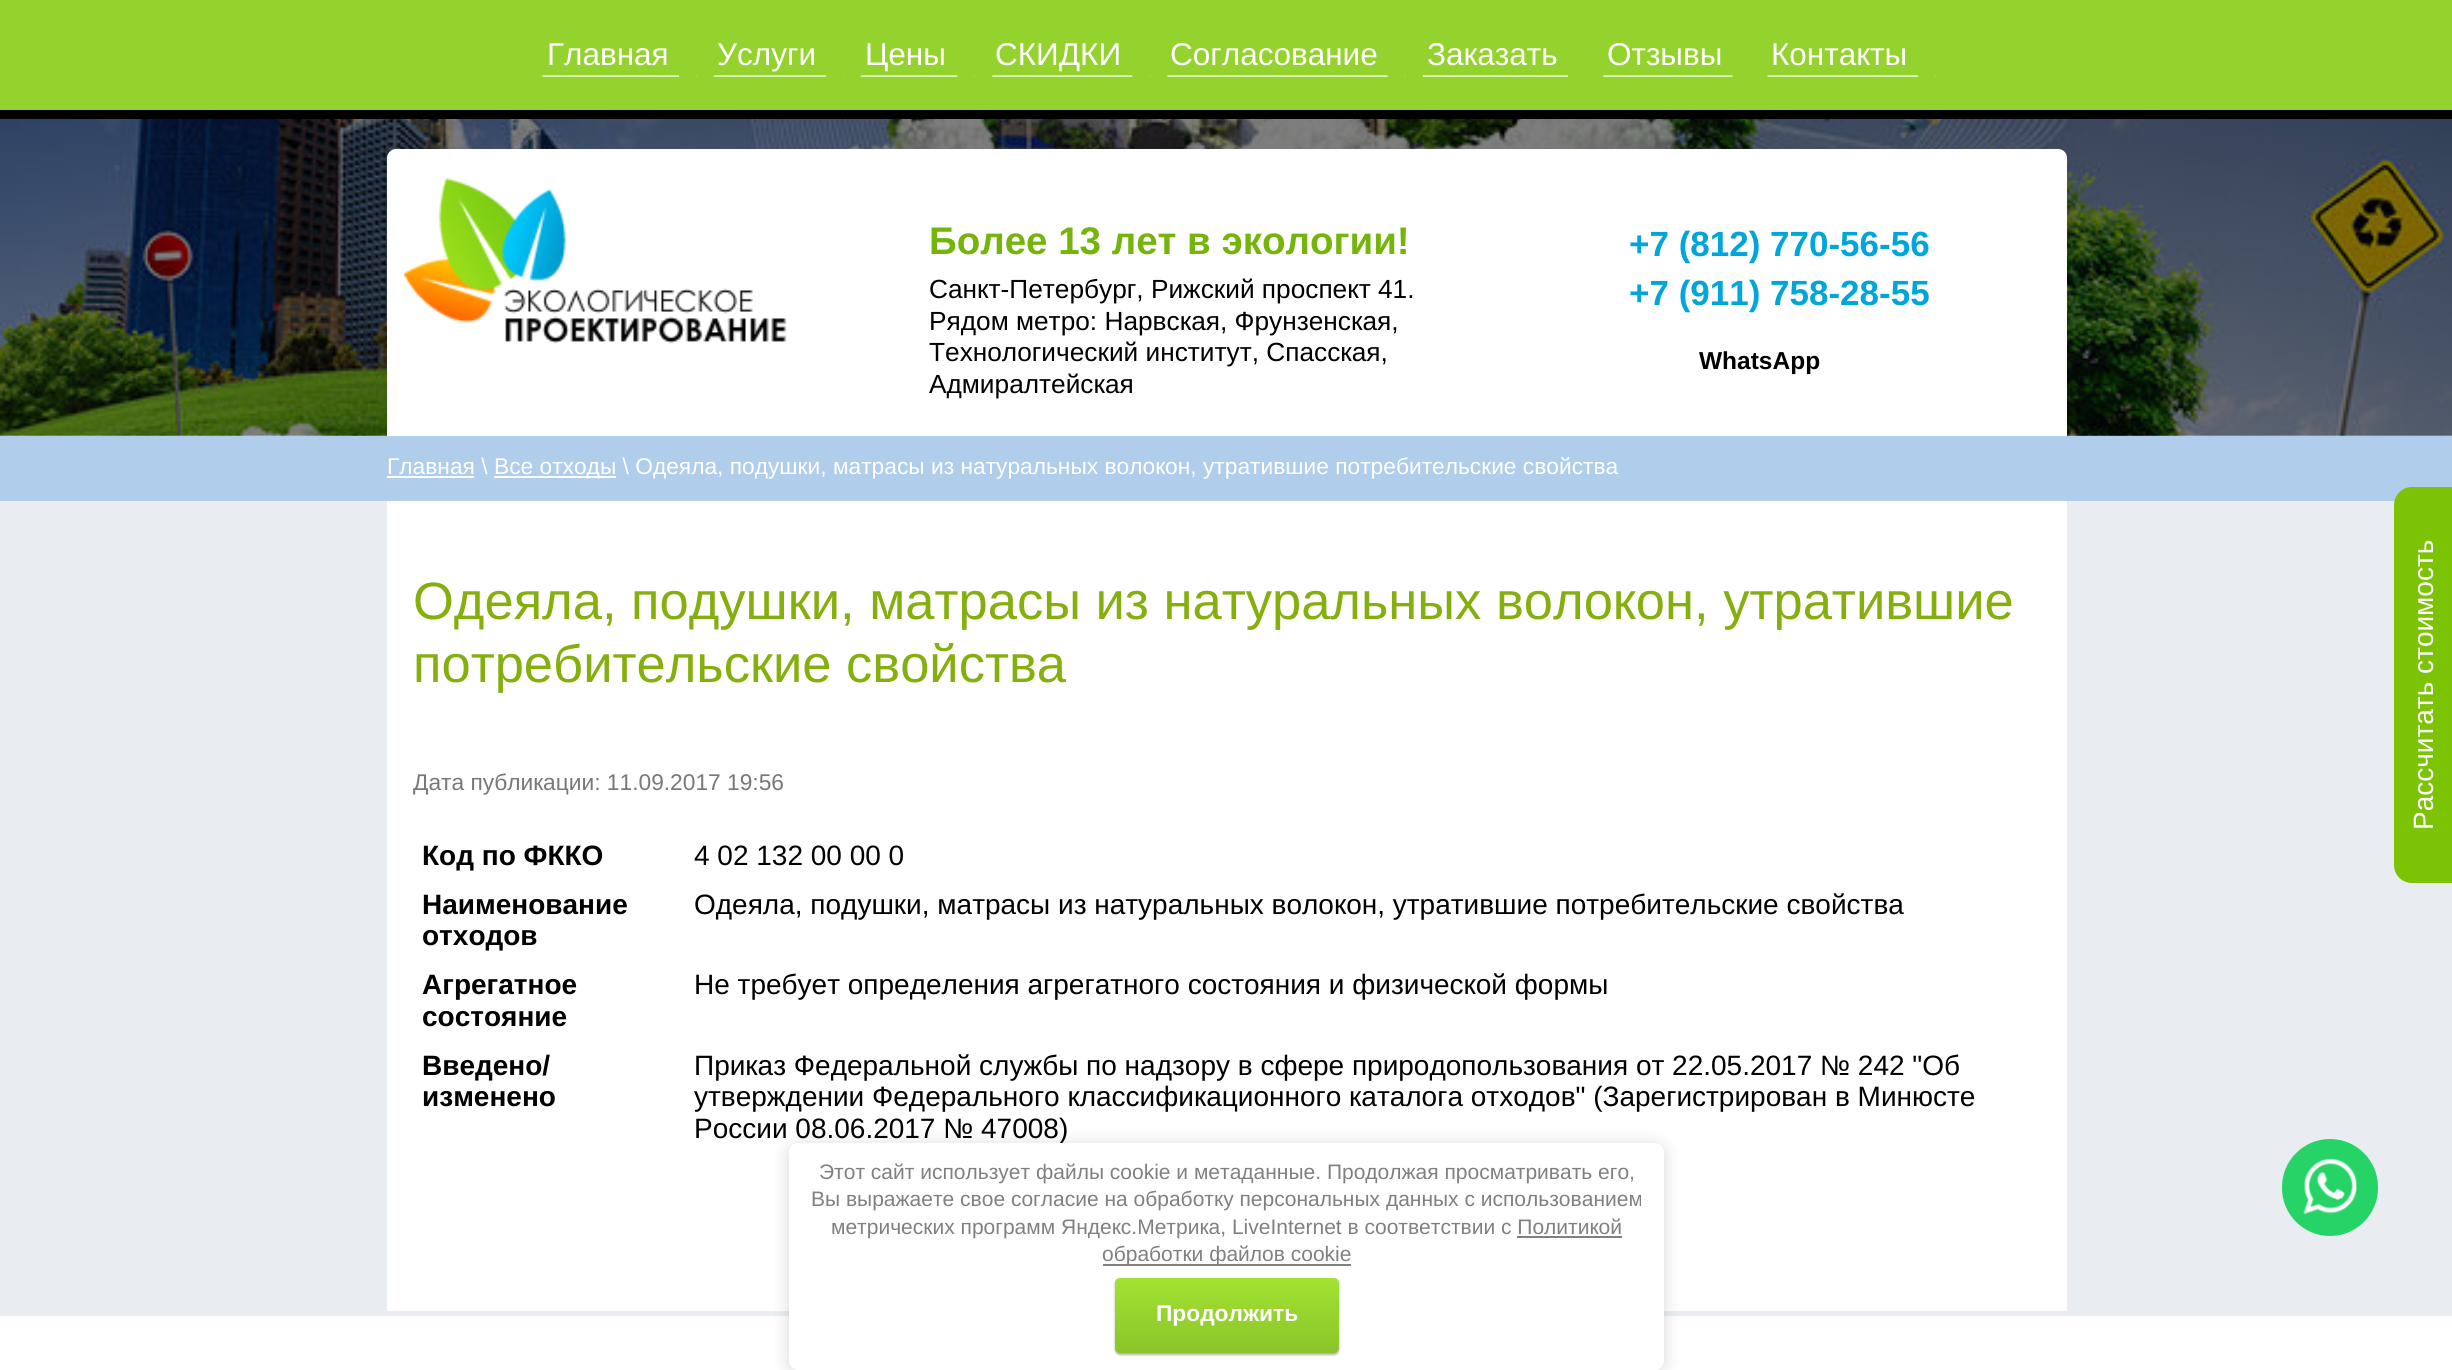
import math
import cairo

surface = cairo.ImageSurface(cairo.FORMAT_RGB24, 2452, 1370)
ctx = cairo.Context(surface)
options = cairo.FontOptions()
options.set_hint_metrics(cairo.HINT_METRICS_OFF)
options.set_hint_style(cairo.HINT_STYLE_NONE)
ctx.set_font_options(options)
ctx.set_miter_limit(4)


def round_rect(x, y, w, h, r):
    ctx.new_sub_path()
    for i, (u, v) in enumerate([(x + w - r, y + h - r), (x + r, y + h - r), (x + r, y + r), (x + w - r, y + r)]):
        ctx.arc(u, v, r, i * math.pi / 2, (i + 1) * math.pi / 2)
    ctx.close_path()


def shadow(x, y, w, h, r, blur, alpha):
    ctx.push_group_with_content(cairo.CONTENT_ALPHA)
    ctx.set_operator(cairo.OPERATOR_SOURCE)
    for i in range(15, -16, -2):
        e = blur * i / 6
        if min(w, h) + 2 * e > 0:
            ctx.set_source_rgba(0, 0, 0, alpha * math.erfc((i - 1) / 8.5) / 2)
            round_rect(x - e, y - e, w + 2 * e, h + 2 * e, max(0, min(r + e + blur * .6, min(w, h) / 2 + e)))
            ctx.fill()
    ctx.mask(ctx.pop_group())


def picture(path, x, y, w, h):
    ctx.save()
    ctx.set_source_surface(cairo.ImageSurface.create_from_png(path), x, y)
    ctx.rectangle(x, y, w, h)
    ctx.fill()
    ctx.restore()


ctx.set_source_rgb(1, 1, 1)
ctx.paint()
ctx.set_source_rgb(0, 0, 0)
ctx.new_path()
ctx.move_to(0, 110)
ctx.line_to(0, 119)
ctx.line_to(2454, 119)
ctx.line_to(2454, 9)
ctx.line_to(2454, 110)
ctx.close_path()
ctx.fill()
ctx.set_source_rgb(0.58, 0.827, 0.176)
ctx.rectangle(0, 0, 2452, 110)
ctx.fill()
picture("img1.png", 542, 75, 155, 2)
ctx.select_font_face("Liberation Sans")
ctx.set_font_size(31.5)
ctx.set_source_rgb(1, 1, 1)
ctx.move_to(547, 65)
ctx.show_text("Главная")
picture("img2.png", 695, 75, 149, 2)
ctx.move_to(717, 65)
ctx.show_text("Услуги")
picture("img3.png", 860, 75, 115, 2)
ctx.move_to(865, 65)
ctx.show_text("Цены")
picture("img4.png", 974, 75, 176, 2)
ctx.move_to(995, 65)
ctx.show_text("СКИДКИ")
picture("img5.png", 1150, 75, 256, 2)
ctx.move_to(1170, 65)
ctx.show_text("Согласование")
picture("img6.png", 1405, 75, 181, 2)
ctx.move_to(1427, 65)
ctx.show_text("Заказать")
picture("img7.png", 1585, 75, 165, 2)
ctx.move_to(1607, 65)
ctx.show_text("Отзывы")
picture("img8.png", 1750, 75, 186, 2)
ctx.move_to(1771, 65)
ctx.show_text("Контакты")
picture("img9.png", 0, 119, 2452, 317)
ctx.new_path()
ctx.move_to(396, 149)
ctx.line_to(2058, 149)
ctx.curve_to(2063, 149, 2067, 153, 2067, 158)
ctx.line_to(2067, 436)
ctx.line_to(387, 436)
ctx.line_to(387, 158)
ctx.curve_to(387, 153, 391, 149, 396, 149)
ctx.close_path()
ctx.fill()
picture("img10.png", 404, 178, 383, 166)
ctx.select_font_face("Liberation Sans", cairo.FONT_SLANT_NORMAL, cairo.FONT_WEIGHT_BOLD)
ctx.set_font_size(38.5)
ctx.set_source_rgb(0.455, 0.706, 0.043)
ctx.move_to(929, 254)
ctx.show_text("Более 13 лет в экологии!")
ctx.select_font_face("Liberation Sans")
ctx.set_font_size(26.25)
ctx.set_source_rgb(0, 0, 0)
ctx.move_to(929, 298)
ctx.show_text("Санкт-Петербург, Рижский проспект 41.")
ctx.move_to(929, 330)
ctx.show_text("Рядом метро: Нарвская, Фрунзенская,")
ctx.move_to(929, 361)
ctx.show_text("Технологический институт, Спасская,")
ctx.move_to(929, 393)
ctx.show_text("Адмиралтейская")
ctx.select_font_face("Liberation Sans", cairo.FONT_SLANT_NORMAL, cairo.FONT_WEIGHT_BOLD)
ctx.set_font_size(35)
ctx.set_source_rgb(0, 0.651, 0.851)
ctx.move_to(1629, 256)
ctx.show_text("+7 (812) 770-56-56")
ctx.move_to(1629, 305)
ctx.show_text("+7 (911) 758-28-55")
ctx.set_font_size(24.5)
ctx.set_source_rgb(0, 0, 0)
ctx.move_to(1699, 369)
ctx.show_text("WhatsApp")
ctx.set_source_rgb(0.914, 0.925, 0.945)
ctx.rectangle(0, 501, 2452, 815)
ctx.fill()
ctx.set_source_rgb(0.69, 0.804, 0.918)
ctx.rectangle(0, 436, 2452, 65)
ctx.fill()
ctx.select_font_face("Liberation Sans")
ctx.set_font_size(22.75)
ctx.set_source_rgb(1, 1, 1)
ctx.move_to(387, 474)
ctx.show_text("Главная \\")
ctx.rectangle(387, 476, 87, 2)
ctx.fill()
ctx.rectangle(494, 476, 122, 2)
ctx.fill()
ctx.move_to(494, 474)
ctx.show_text("Все отходы \\ Одеяла, подушки, матрасы из натуральных волокон, утратившие потребительские свойства")
ctx.rectangle(387, 501, 1680, 810)
ctx.fill()
ctx.set_font_size(52.5)
ctx.set_source_rgb(0.522, 0.686, 0.051)
ctx.move_to(413, 619)
ctx.show_text("Одеяла, подушки, матрасы из натуральных волокон, утратившие")
ctx.move_to(413, 682)
ctx.show_text("потребительские свойства")
ctx.set_font_size(22.75)
ctx.set_source_rgb(0.471, 0.471, 0.471)
ctx.move_to(413, 790)
ctx.show_text("Дата публикации: 11.09.2017 19:56")
ctx.select_font_face("Liberation Sans", cairo.FONT_SLANT_NORMAL, cairo.FONT_WEIGHT_BOLD)
ctx.set_font_size(28)
ctx.set_source_rgb(0, 0, 0)
ctx.move_to(422, 865)
ctx.show_text("Код по ФККО")
ctx.select_font_face("Liberation Sans")
ctx.move_to(694, 865)
ctx.show_text("4 02 132 00 00 0")
ctx.select_font_face("Liberation Sans", cairo.FONT_SLANT_NORMAL, cairo.FONT_WEIGHT_BOLD)
ctx.move_to(422, 914)
ctx.show_text("Наименование")
ctx.move_to(422, 945)
ctx.show_text("отходов")
ctx.select_font_face("Liberation Sans")
ctx.move_to(694, 914)
ctx.show_text("Одеяла, подушки, матрасы из натуральных волокон, утратившие потребительские свойства")
ctx.select_font_face("Liberation Sans", cairo.FONT_SLANT_NORMAL, cairo.FONT_WEIGHT_BOLD)
ctx.move_to(422, 994)
ctx.show_text("Агрегатное")
ctx.move_to(422, 1026)
ctx.show_text("состояние")
ctx.select_font_face("Liberation Sans")
ctx.move_to(694, 994)
ctx.show_text("Не требует определения агрегатного состояния и физической формы")
ctx.select_font_face("Liberation Sans", cairo.FONT_SLANT_NORMAL, cairo.FONT_WEIGHT_BOLD)
ctx.move_to(422, 1075)
ctx.show_text("Введено/")
ctx.move_to(422, 1106)
ctx.show_text("изменено")
ctx.select_font_face("Liberation Sans")
ctx.move_to(694, 1075)
ctx.show_text("Приказ Федеральной службы по надзору в сфере природопользования от 22.05.2017 № 242 \"Об")
ctx.move_to(694, 1106)
ctx.show_text("утверждении Федерального классификационного каталога отходов\" (Зарегистрирован в Минюсте")
ctx.move_to(694, 1138)
ctx.show_text("России 08.06.2017 № 47008)")
ctx.set_source_rgb(0.145, 0.827, 0.4)
round_rect(2282, 1139, 96, 97, 48)
ctx.fill()
picture("img11.png", 2303, 1158, 54, 57)
ctx.set_source_rgb(0.486, 0.765, 0.024)
ctx.new_path()
ctx.move_to(2394, 865)
ctx.line_to(2394, 505)
ctx.curve_to(2394, 495, 2402, 487, 2412, 487)
ctx.line_to(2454, 487)
ctx.line_to(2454, 883)
ctx.line_to(2412, 883)
ctx.curve_to(2402, 883, 2394, 875, 2394, 865)
ctx.close_path()
ctx.fill()
ctx.set_source_rgb(1, 1, 1)
ctx.save()
ctx.translate(2433, 830)
ctx.rotate(-90 * math.pi / 180)
ctx.move_to(0, 0)
ctx.show_text("Рассчитать стоимость")
ctx.restore()
ctx.set_source_rgb(0, 0, 0)
shadow(789, 1145, 875, 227, 9, 9, 0.15)
ctx.set_source_rgb(1, 1, 1)
round_rect(789, 1143, 875, 227, 9)
ctx.fill()
ctx.set_font_size(21)
ctx.set_source_rgb(0.502, 0.502, 0.502)
ctx.move_to(819, 1179)
ctx.show_text("Этот сайт использует файлы cookie и метаданные. Продолжая просматривать его,")
ctx.move_to(811, 1206)
ctx.show_text("Вы выражаете свое согласие на обработку персональных данных с использованием")
ctx.move_to(831, 1234)
ctx.show_text("метрических программ Яндекс.Метрика, LiveInternet в соответствии с Политикой")
ctx.rectangle(1103, 1264, 248, 2)
ctx.fill()
ctx.move_to(1102, 1261)
ctx.show_text("обработки файлов cookie")
ctx.rectangle(1517, 1236, 105, 2)
ctx.fill()
ctx.set_source_rgb(0, 0, 0)
shadow(1115, 1279, 224, 76, 5, 1, 0.3)
gradient = cairo.LinearGradient(1227, 1353, 1227, 1278)
gradient.add_color_stop_rgba(0, 0.545, 0.769, 0.165, 1)
gradient.add_color_stop_rgba(1, 0.635, 0.89, 0.196, 1)
ctx.set_source(gradient)
round_rect(1115, 1278, 224, 75, 5)
ctx.fill()
ctx.select_font_face("Liberation Sans", cairo.FONT_SLANT_NORMAL, cairo.FONT_WEIGHT_BOLD)
ctx.set_font_size(22.75)
ctx.set_source_rgb(1, 1, 1)
ctx.move_to(1156, 1321)
ctx.show_text("Продолжить")
surface.write_to_png("page.png")
